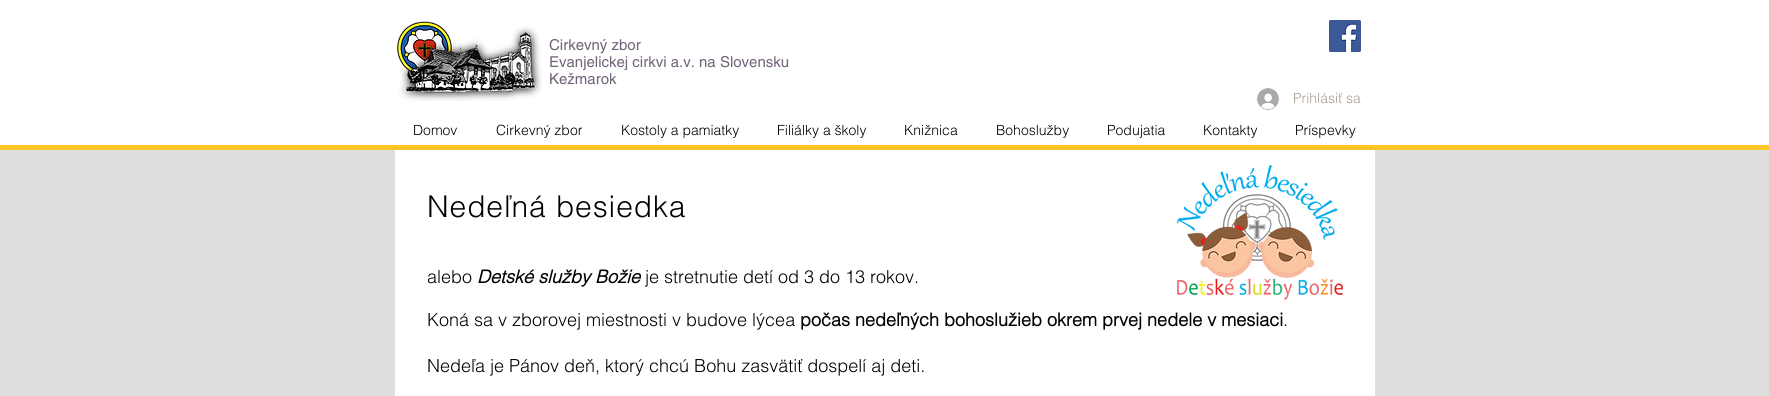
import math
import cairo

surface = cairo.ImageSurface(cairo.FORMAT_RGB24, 1769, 396)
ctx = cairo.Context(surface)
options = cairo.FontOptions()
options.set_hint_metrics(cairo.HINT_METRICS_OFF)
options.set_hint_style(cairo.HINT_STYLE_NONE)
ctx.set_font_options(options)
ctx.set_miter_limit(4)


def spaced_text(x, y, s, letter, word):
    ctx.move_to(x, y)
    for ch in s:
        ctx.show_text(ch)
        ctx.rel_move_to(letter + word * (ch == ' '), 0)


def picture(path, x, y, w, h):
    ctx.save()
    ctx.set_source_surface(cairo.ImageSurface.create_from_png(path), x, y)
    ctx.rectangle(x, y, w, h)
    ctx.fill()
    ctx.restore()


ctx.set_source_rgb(0.871, 0.871, 0.871)
ctx.paint()
ctx.set_source_rgb(1, 1, 1)
ctx.rectangle(0, 0, 1769, 145)
ctx.fill()
ctx.set_source_rgb(1, 0.769, 0.145)
ctx.rectangle(0, 145, 1769, 5)
ctx.fill()
picture("img1.png", 397, 21, 145, 80)
ctx.select_font_face("helvetica")
ctx.set_font_size(15)
ctx.set_source_rgb(0.447, 0.384, 0.467)
ctx.move_to(549, 50)
ctx.show_text("Cirkevný zbor")
ctx.move_to(549, 67)
ctx.show_text("Evanjelickej cirkvi a.v. na Slovensku")
ctx.move_to(549, 84)
ctx.show_text("Kežmarok")
picture("img2.png", 1329, 20, 32, 32)
picture("img3.png", 1257, 88, 22, 22)
ctx.select_font_face("helvetica Light")
ctx.set_font_size(14)
ctx.set_source_rgb(0.659, 0.62, 0.569)
ctx.move_to(1293, 103)
ctx.show_text("Prihlásiť sa")
ctx.set_source_rgb(0, 0, 0)
ctx.move_to(413, 135)
ctx.show_text("Domov")
ctx.move_to(496, 135)
ctx.show_text("Cirkevný zbor")
ctx.move_to(621, 135)
ctx.show_text("Kostoly a pamiatky")
ctx.move_to(777, 135)
ctx.show_text("Filiálky a školy")
ctx.move_to(904, 135)
ctx.show_text("Knižnica")
ctx.move_to(996, 135)
ctx.show_text("Bohoslužby")
ctx.move_to(1107, 135)
ctx.show_text("Podujatia")
ctx.move_to(1203, 135)
ctx.show_text("Kontakty")
ctx.move_to(1295, 135)
ctx.show_text("Príspevky")
ctx.set_source_rgb(1, 1, 1)
ctx.rectangle(395, 150, 980, 246)
ctx.fill()
ctx.set_font_size(30)
ctx.set_source_rgb(0, 0, 0)
spaced_text(427, 217, "Nedeľná besiedka", 0.9, 0)
picture("img4.png", 1176, 165, 167, 135)
ctx.set_font_size(18)
ctx.move_to(427, 283)
ctx.show_text("alebo")
ctx.select_font_face("helvetica", cairo.FONT_SLANT_ITALIC, cairo.FONT_WEIGHT_BOLD)
ctx.move_to(477, 283)
ctx.show_text("Detské služby Božie")
ctx.select_font_face("helvetica Light")
ctx.move_to(645, 283)
ctx.show_text("je stretnutie detí od 3 do 13 rokov.")
ctx.move_to(427, 326)
ctx.show_text("Koná sa v zborovej miestnosti v budove lýcea")
ctx.select_font_face("helvetica", cairo.FONT_SLANT_NORMAL, cairo.FONT_WEIGHT_BOLD)
ctx.move_to(800, 326)
ctx.show_text("počas nedeľných bohoslužieb okrem prvej nedele v mesiaci")
ctx.select_font_face("helvetica Light")
ctx.move_to(1283, 326)
ctx.show_text(".")
ctx.move_to(427, 372)
ctx.show_text("Nedeľa je Pánov deň, ktorý chcú Bohu zasvätiť dospelí aj deti.")
surface.write_to_png("page.png")
